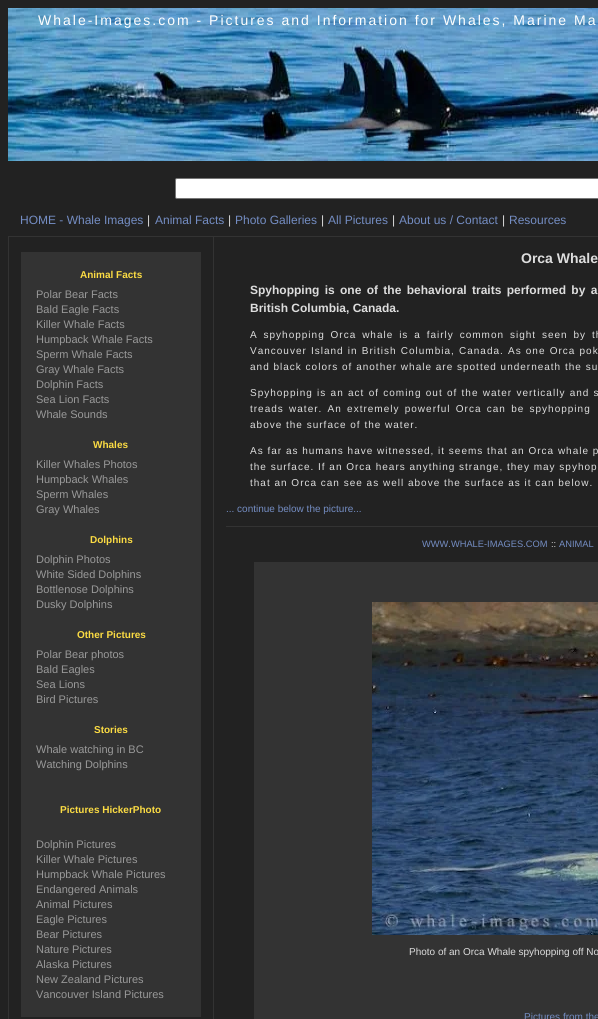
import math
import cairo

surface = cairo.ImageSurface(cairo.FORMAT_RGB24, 598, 1019)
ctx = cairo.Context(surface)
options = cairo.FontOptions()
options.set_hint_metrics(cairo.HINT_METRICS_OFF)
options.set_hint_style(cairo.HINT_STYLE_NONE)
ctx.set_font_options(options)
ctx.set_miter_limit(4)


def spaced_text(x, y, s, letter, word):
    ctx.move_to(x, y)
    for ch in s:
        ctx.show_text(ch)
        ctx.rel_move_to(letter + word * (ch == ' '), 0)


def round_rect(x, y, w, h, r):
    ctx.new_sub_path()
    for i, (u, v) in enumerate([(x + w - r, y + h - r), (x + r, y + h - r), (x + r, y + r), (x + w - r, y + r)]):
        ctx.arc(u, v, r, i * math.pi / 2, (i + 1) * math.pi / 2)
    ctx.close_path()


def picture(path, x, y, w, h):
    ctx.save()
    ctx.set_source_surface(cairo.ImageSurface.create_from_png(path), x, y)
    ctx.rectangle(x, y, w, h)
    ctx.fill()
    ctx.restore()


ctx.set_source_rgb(0.133, 0.133, 0.133)
ctx.paint()
picture("img1.png", 8, 8, 590, 153)
ctx.select_font_face("Liberation Sans")
ctx.set_font_size(14)
ctx.set_source_rgb(1, 1, 1)
spaced_text(38, 25, "Whale-Images.com - Pictures and Information for Whales, Marine Ma", 2, 0)
round_rect(175.5, 178.5, 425, 20, 1.5)
ctx.fill_preserve()
ctx.set_source_rgb(0.463, 0.463, 0.463)
ctx.set_line_width(1)
ctx.stroke()
ctx.set_font_size(12)
ctx.set_source_rgb(0.455, 0.553, 0.765)
ctx.move_to(20, 224)
ctx.show_text("HOME - Whale Images")
ctx.set_source_rgb(0.867, 0.867, 0.867)
ctx.move_to(147, 224)
ctx.show_text("|")
ctx.set_source_rgb(0.455, 0.553, 0.765)
ctx.move_to(155, 224)
ctx.show_text("Animal Facts")
ctx.set_source_rgb(0.867, 0.867, 0.867)
ctx.move_to(228, 224)
ctx.show_text("|")
ctx.set_source_rgb(0.455, 0.553, 0.765)
ctx.move_to(235, 224)
ctx.show_text("Photo Galleries")
ctx.set_source_rgb(0.867, 0.867, 0.867)
ctx.move_to(321, 224)
ctx.show_text("|")
ctx.set_source_rgb(0.455, 0.553, 0.765)
ctx.move_to(328, 224)
ctx.show_text("All Pictures")
ctx.set_source_rgb(0.867, 0.867, 0.867)
ctx.move_to(392, 224)
ctx.show_text("|")
ctx.set_source_rgb(0.455, 0.553, 0.765)
ctx.move_to(399, 224)
ctx.show_text("About us / Contact")
ctx.set_source_rgb(0.867, 0.867, 0.867)
ctx.move_to(502, 224)
ctx.show_text("|")
ctx.set_source_rgb(0.455, 0.553, 0.765)
ctx.move_to(509, 224)
ctx.show_text("Resources")
ctx.rectangle(8.5, 236.5, 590, 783)
ctx.set_source_rgb(0.2, 0.2, 0.2)
ctx.stroke()
ctx.rectangle(21, 252, 180, 765)
ctx.fill()
ctx.select_font_face("Liberation Sans", cairo.FONT_SLANT_NORMAL, cairo.FONT_WEIGHT_BOLD)
ctx.set_font_size(10)
ctx.set_source_rgb(0.988, 0.863, 0.263)
ctx.move_to(80, 278)
ctx.show_text("Animal Facts")
ctx.select_font_face("Liberation Sans")
ctx.set_font_size(11)
ctx.set_source_rgb(0.6, 0.6, 0.6)
ctx.move_to(36, 298)
ctx.show_text("Polar Bear Facts")
ctx.move_to(36, 313)
ctx.show_text("Bald Eagle Facts")
ctx.move_to(36, 328)
ctx.show_text("Killer Whale Facts")
ctx.move_to(36, 343)
ctx.show_text("Humpback Whale Facts")
ctx.move_to(36, 358)
ctx.show_text("Sperm Whale Facts")
ctx.move_to(36, 373)
ctx.show_text("Gray Whale Facts")
ctx.move_to(36, 388)
ctx.show_text("Dolphin Facts")
ctx.move_to(36, 403)
ctx.show_text("Sea Lion Facts")
ctx.move_to(36, 418)
ctx.show_text("Whale Sounds")
ctx.select_font_face("Liberation Sans", cairo.FONT_SLANT_NORMAL, cairo.FONT_WEIGHT_BOLD)
ctx.set_font_size(10)
ctx.set_source_rgb(0.988, 0.863, 0.263)
ctx.move_to(93, 448)
ctx.show_text("Whales")
ctx.select_font_face("Liberation Sans")
ctx.set_font_size(11)
ctx.set_source_rgb(0.6, 0.6, 0.6)
ctx.move_to(36, 468)
ctx.show_text("Killer Whales Photos")
ctx.move_to(36, 483)
ctx.show_text("Humpback Whales")
ctx.move_to(36, 498)
ctx.show_text("Sperm Whales")
ctx.move_to(36, 513)
ctx.show_text("Gray Whales")
ctx.select_font_face("Liberation Sans", cairo.FONT_SLANT_NORMAL, cairo.FONT_WEIGHT_BOLD)
ctx.set_font_size(10)
ctx.set_source_rgb(0.988, 0.863, 0.263)
ctx.move_to(90, 543)
ctx.show_text("Dolphins")
ctx.select_font_face("Liberation Sans")
ctx.set_font_size(11)
ctx.set_source_rgb(0.6, 0.6, 0.6)
ctx.move_to(36, 563)
ctx.show_text("Dolphin Photos")
ctx.move_to(36, 578)
ctx.show_text("White Sided Dolphins")
ctx.move_to(36, 593)
ctx.show_text("Bottlenose Dolphins")
ctx.move_to(36, 608)
ctx.show_text("Dusky Dolphins")
ctx.select_font_face("Liberation Sans", cairo.FONT_SLANT_NORMAL, cairo.FONT_WEIGHT_BOLD)
ctx.set_font_size(10)
ctx.set_source_rgb(0.988, 0.863, 0.263)
ctx.move_to(77, 638)
ctx.show_text("Other Pictures")
ctx.select_font_face("Liberation Sans")
ctx.set_font_size(11)
ctx.set_source_rgb(0.6, 0.6, 0.6)
ctx.move_to(36, 658)
ctx.show_text("Polar Bear photos")
ctx.move_to(36, 673)
ctx.show_text("Bald Eagles")
ctx.move_to(36, 688)
ctx.show_text("Sea Lions")
ctx.move_to(36, 703)
ctx.show_text("Bird Pictures")
ctx.select_font_face("Liberation Sans", cairo.FONT_SLANT_NORMAL, cairo.FONT_WEIGHT_BOLD)
ctx.set_font_size(10)
ctx.set_source_rgb(0.988, 0.863, 0.263)
ctx.move_to(94, 733)
ctx.show_text("Stories")
ctx.select_font_face("Liberation Sans")
ctx.set_font_size(11)
ctx.set_source_rgb(0.6, 0.6, 0.6)
ctx.move_to(36, 753)
ctx.show_text("Whale watching in BC")
ctx.move_to(36, 768)
ctx.show_text("Watching Dolphins")
ctx.select_font_face("Liberation Sans", cairo.FONT_SLANT_NORMAL, cairo.FONT_WEIGHT_BOLD)
ctx.set_font_size(10)
ctx.set_source_rgb(0.988, 0.863, 0.263)
ctx.move_to(60, 813)
ctx.show_text("Pictures HickerPhoto")
ctx.select_font_face("Liberation Sans")
ctx.set_font_size(11)
ctx.set_source_rgb(0.6, 0.6, 0.6)
ctx.move_to(36, 848)
ctx.show_text("Dolphin Pictures")
ctx.move_to(36, 863)
ctx.show_text("Killer Whale Pictures")
ctx.move_to(36, 878)
ctx.show_text("Humpback Whale Pictures")
ctx.move_to(36, 893)
ctx.show_text("Endangered Animals")
ctx.move_to(36, 908)
ctx.show_text("Animal Pictures")
ctx.move_to(36, 923)
ctx.show_text("Eagle Pictures")
ctx.move_to(36, 938)
ctx.show_text("Bear Pictures")
ctx.move_to(36, 953)
ctx.show_text("Nature Pictures")
ctx.move_to(36, 968)
ctx.show_text("Alaska Pictures")
ctx.move_to(36, 983)
ctx.show_text("New Zealand Pictures")
ctx.move_to(36, 998)
ctx.show_text("Vancouver Island Pictures")
ctx.set_source_rgb(0.2, 0.2, 0.2)
ctx.rectangle(213, 237, 1, 782)
ctx.fill()
ctx.select_font_face("Liberation Sans", cairo.FONT_SLANT_NORMAL, cairo.FONT_WEIGHT_BOLD)
ctx.set_font_size(14)
ctx.set_source_rgb(0.867, 0.867, 0.867)
ctx.move_to(521, 263)
ctx.show_text("Orca Whale")
ctx.set_font_size(12)
spaced_text(250, 294, "Spyhopping is one of the behavioral traits performed by a", 0, 2)
ctx.move_to(250, 312)
ctx.show_text("British Columbia, Canada.")
ctx.select_font_face("Liberation Sans")
ctx.set_font_size(10)
spaced_text(250, 338, "A spyhopping Orca whale is a fairly common sight seen by th", 1, 2.1)
spaced_text(250, 354, "Vancouver Island in British Columbia, Canada. As one Orca pok", 1, 0.4)
spaced_text(250, 370, "and black colors of another whale are spotted underneath the su", 1, 0)
spaced_text(250, 396, "Spyhopping is an act of coming out of the water vertically and s", 1, 0.5)
spaced_text(250, 412, "treads water. An extremely powerful Orca can be spyhopping", 1, 1.5)
spaced_text(250, 428, "above the surface of the water.", 1, 0)
spaced_text(250, 454, "As far as humans have witnessed, it seems that an Orca whale p", 1, 0)
spaced_text(250, 470, "the surface. If an Orca hears anything strange, they may spyhop", 1, 0)
spaced_text(250, 486, "that an Orca can see as well above the surface as it can below.", 1, 0)
ctx.set_source_rgb(0.455, 0.553, 0.765)
ctx.move_to(226, 512)
ctx.show_text("... continue below the picture...")
ctx.set_source_rgb(0.2, 0.2, 0.2)
ctx.rectangle(226, 526, 372, 1)
ctx.fill()
ctx.set_font_size(9.3)
ctx.set_source_rgb(0.455, 0.553, 0.765)
ctx.move_to(422, 547)
ctx.show_text("WWW.WHALE-IMAGES.COM")
ctx.set_source_rgb(0.867, 0.867, 0.867)
ctx.move_to(551, 547)
ctx.show_text("::")
ctx.set_source_rgb(0.455, 0.553, 0.765)
ctx.move_to(559, 547)
ctx.show_text("ANIMAL")
ctx.set_source_rgb(0.2, 0.2, 0.2)
ctx.rectangle(254, 562, 344, 457)
ctx.fill()
picture("img2.png", 372, 602, 226, 333)
ctx.set_font_size(10)
ctx.set_source_rgb(0.867, 0.867, 0.867)
ctx.move_to(409, 955)
ctx.show_text("Photo of an Orca Whale spyhopping off No")
ctx.set_source_rgb(0.455, 0.553, 0.765)
ctx.move_to(524, 1020)
ctx.show_text("Pictures from the")
surface.write_to_png("page.png")
